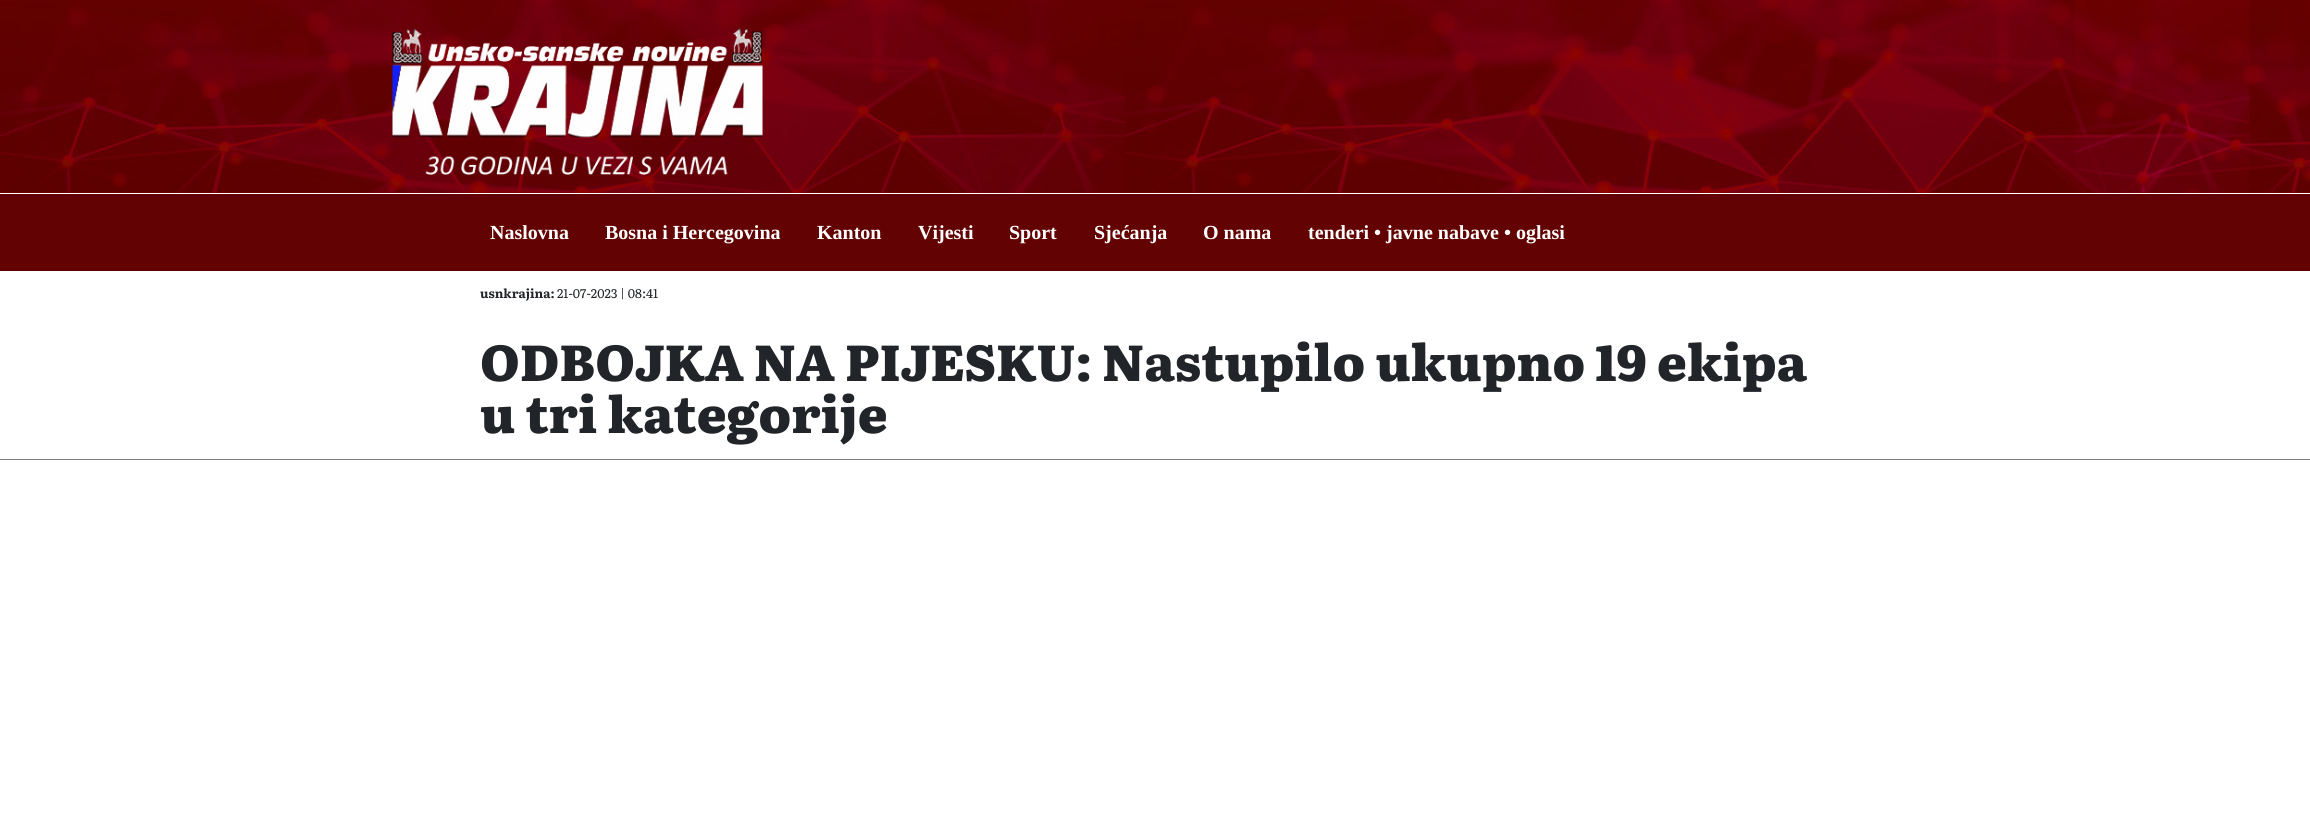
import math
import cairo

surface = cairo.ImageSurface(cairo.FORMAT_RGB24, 2310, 815)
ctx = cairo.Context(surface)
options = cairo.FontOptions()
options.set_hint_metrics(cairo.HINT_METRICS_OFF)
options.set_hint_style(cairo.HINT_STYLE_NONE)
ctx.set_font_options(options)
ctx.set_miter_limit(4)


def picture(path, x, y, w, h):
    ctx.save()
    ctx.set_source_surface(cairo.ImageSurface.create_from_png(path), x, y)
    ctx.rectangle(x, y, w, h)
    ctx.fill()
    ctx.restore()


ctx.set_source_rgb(1, 1, 1)
ctx.paint()
ctx.set_source_rgb(0.502, 0, 0)
ctx.rectangle(0, 192, 2310, 1)
ctx.fill()
picture("img1.png", 0, 0, 2310, 193)
picture("img2.png", 392, 27, 371, 148)
ctx.set_source_rgb(0.388, 0.008, 0.008)
ctx.rectangle(0, 194, 2310, 76)
ctx.fill()
ctx.set_source_rgb(0.361, 0, 0)
ctx.rectangle(0, 270, 2310, 1)
ctx.fill()
ctx.select_font_face("Liberation Serif", cairo.FONT_SLANT_NORMAL, cairo.FONT_WEIGHT_BOLD)
ctx.set_font_size(20)
ctx.set_source_rgb(1, 1, 1)
ctx.move_to(490, 239)
ctx.show_text("Naslovna")
ctx.move_to(605, 239)
ctx.show_text("Bosna i Hercegovina")
ctx.move_to(817, 239)
ctx.show_text("Kanton")
ctx.move_to(918, 239)
ctx.show_text("Vijesti")
ctx.move_to(1009, 239)
ctx.show_text("Sport")
ctx.move_to(1094, 239)
ctx.show_text("Sjećanja")
ctx.move_to(1203, 239)
ctx.show_text("O nama")
ctx.move_to(1308, 239)
ctx.show_text("tenderi • javne nabave • oglasi")
ctx.set_source_rgb(0.502, 0.502, 0.502)
ctx.rectangle(0, 459, 2310, 1)
ctx.fill()
ctx.select_font_face("Literata", cairo.FONT_SLANT_NORMAL, cairo.FONT_WEIGHT_BOLD)
ctx.set_font_size(12.5)
ctx.set_source_rgb(0.129, 0.145, 0.161)
ctx.move_to(480, 298)
ctx.show_text("usnkrajina:")
ctx.select_font_face("Literata")
ctx.move_to(557, 298)
ctx.show_text("21-07-2023 | 08:41")
ctx.select_font_face("Literata ExtraBold")
ctx.set_font_size(50.45)
ctx.move_to(480, 381)
ctx.show_text("ODBOJKA NA PIJESKU: Nastupilo ukupno 19 ekipa")
ctx.move_to(480, 433)
ctx.show_text("u tri kategorije")
surface.write_to_png("page.png")
